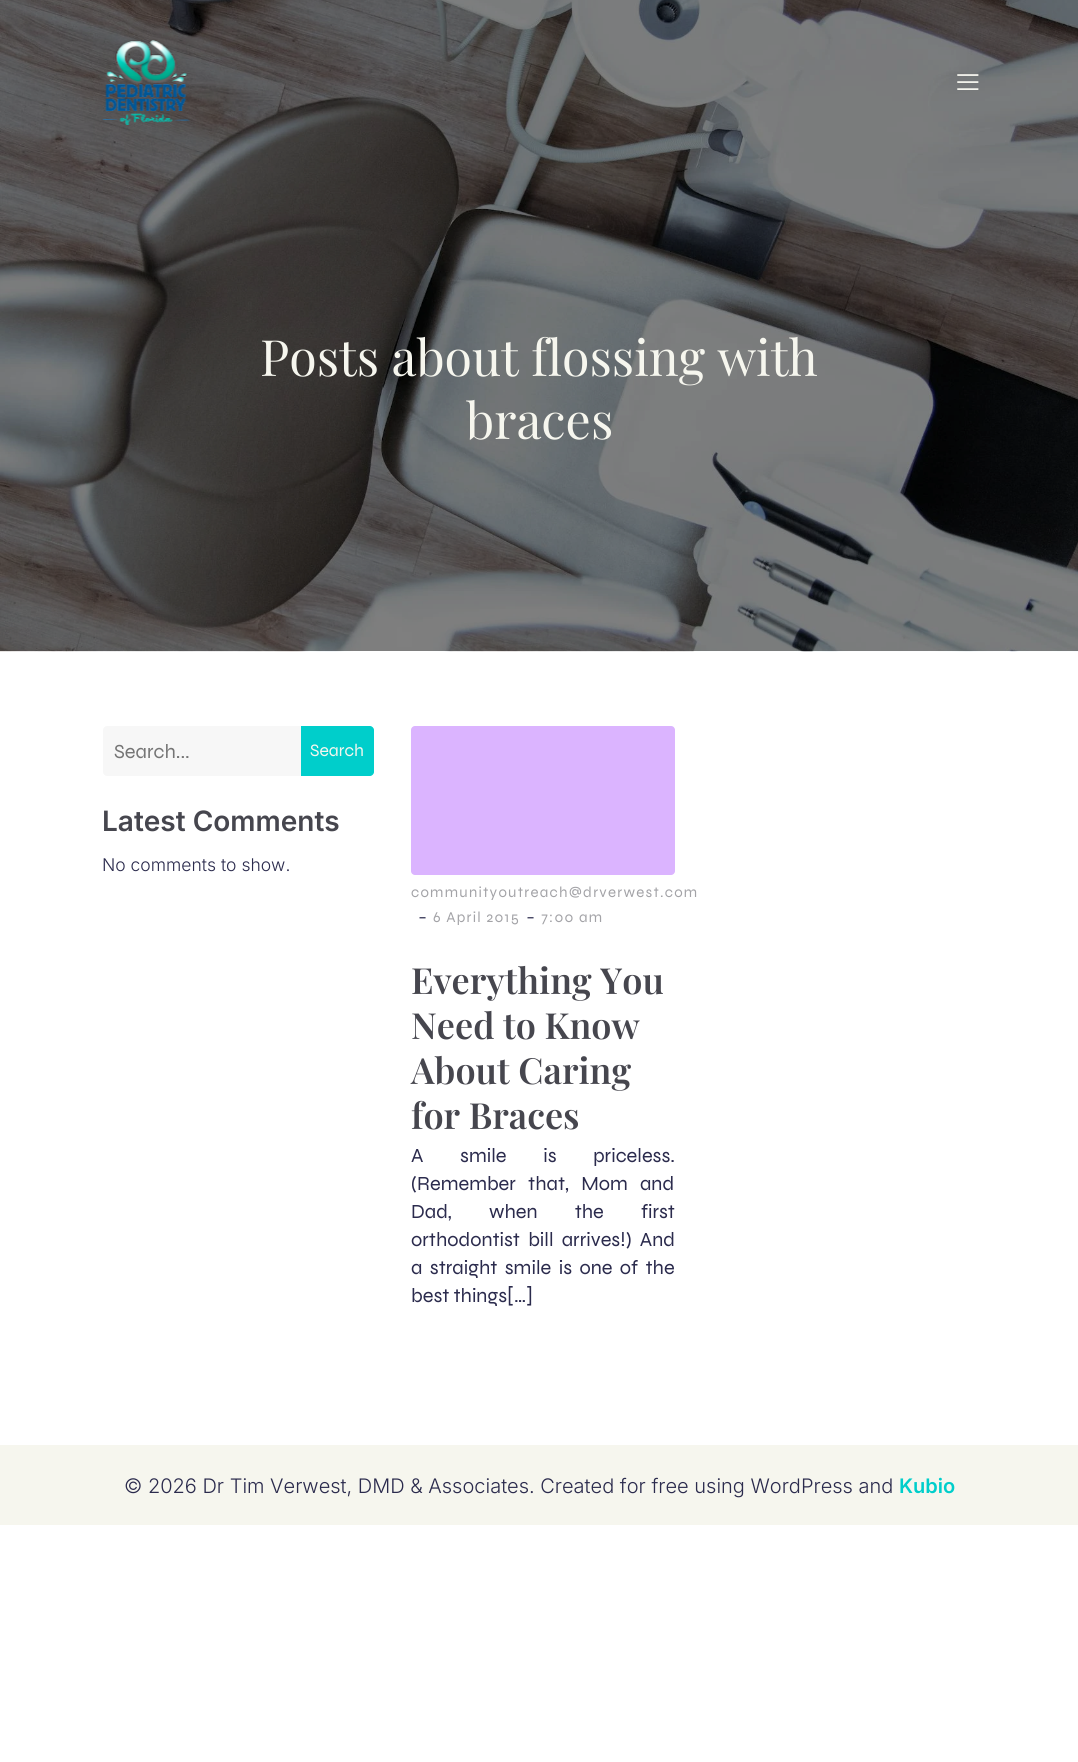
import math
import cairo

surface = cairo.ImageSurface(cairo.FORMAT_RGB24, 1078, 1762)
ctx = cairo.Context(surface)
options = cairo.FontOptions()
options.set_hint_metrics(cairo.HINT_METRICS_OFF)
options.set_hint_style(cairo.HINT_STYLE_NONE)
ctx.set_font_options(options)
ctx.set_miter_limit(4)


def spaced_text(x, y, s, letter, word):
    ctx.move_to(x, y)
    for ch in s:
        ctx.show_text(ch)
        ctx.rel_move_to(letter + word * (ch == ' '), 0)


def round_rect(x, y, w, h, r):
    ctx.new_sub_path()
    for i, (u, v) in enumerate([(x + w - r, y + h - r), (x + r, y + h - r), (x + r, y + r), (x + w - r, y + r)]):
        ctx.arc(u, v, r, i * math.pi / 2, (i + 1) * math.pi / 2)
    ctx.close_path()


def picture(path, x, y, w, h):
    ctx.save()
    ctx.set_source_surface(cairo.ImageSurface.create_from_png(path), x, y)
    ctx.rectangle(x, y, w, h)
    ctx.fill()
    ctx.restore()


ctx.set_source_rgb(1, 1, 1)
ctx.paint()
picture("img3.png", 0, 0, 1078, 652)
picture("img1.png", 102, 39, 88, 86)
picture("img2.png", 957, 74, 22, 16)
ctx.select_font_face("Playfair Display")
ctx.set_font_size(50)
ctx.set_source_rgb(0.961, 0.961, 0.933)
ctx.move_to(260, 376)
ctx.show_text("Posts about flossing with")
ctx.move_to(466, 439)
ctx.show_text("braces")
ctx.set_source_rgb(0.965, 0.965, 0.965)
ctx.new_path()
ctx.move_to(107, 726)
ctx.line_to(301, 726)
ctx.line_to(301, 776)
ctx.line_to(107, 776)
ctx.curve_to(105, 776, 103, 774, 103, 772)
ctx.line_to(103, 730)
ctx.curve_to(103, 728, 105, 726, 107, 726)
ctx.close_path()
ctx.fill()
ctx.select_font_face("Syne")
ctx.set_font_size(20)
ctx.set_source_rgb(0.459, 0.459, 0.459)
ctx.move_to(114, 758)
ctx.show_text("Search...")
ctx.set_source_rgb(0, 0.808, 0.796)
ctx.new_path()
ctx.move_to(301, 726)
ctx.line_to(370, 726)
ctx.curve_to(372, 726, 374, 728, 374, 730)
ctx.line_to(374, 772)
ctx.curve_to(374, 774, 372, 776, 370, 776)
ctx.line_to(301, 776)
ctx.close_path()
ctx.fill()
ctx.set_font_size(17.5)
ctx.set_source_rgb(0.961, 0.961, 0.933)
ctx.move_to(310, 756)
ctx.show_text("Search")
ctx.select_font_face("Inter SemiBold")
ctx.set_font_size(28)
ctx.set_source_rgb(0.275, 0.275, 0.306)
ctx.move_to(102, 831)
ctx.show_text("Latest Comments")
ctx.select_font_face("Inter Light")
ctx.set_font_size(17.5)
ctx.set_source_rgb(0.169, 0.169, 0.302)
ctx.move_to(102, 871)
ctx.show_text("No comments to show.")
ctx.set_source_rgb(0.859, 0.706, 1)
round_rect(411, 726, 264, 149, 4)
ctx.fill()
ctx.select_font_face("Syne")
ctx.set_font_size(15)
ctx.set_source_rgb(0.639, 0.639, 0.655)
spaced_text(411, 897, "communityoutreach@drverwest.com", 1.25, 0)
ctx.select_font_face("Inter Light")
ctx.set_font_size(20)
ctx.set_source_rgb(0.169, 0.169, 0.302)
ctx.move_to(418, 924)
ctx.show_text("-")
ctx.select_font_face("Syne")
ctx.set_font_size(15)
ctx.set_source_rgb(0.639, 0.639, 0.655)
spaced_text(433, 922, "6 April 2015", 1.25, 0)
ctx.select_font_face("Inter Light")
ctx.set_font_size(20)
ctx.set_source_rgb(0.169, 0.169, 0.302)
ctx.move_to(526, 924)
ctx.show_text("-")
ctx.select_font_face("Syne")
ctx.set_font_size(15)
ctx.set_source_rgb(0.639, 0.639, 0.655)
spaced_text(541, 922, "7:00 am", 1.25, 0)
ctx.select_font_face("Playfair Display SemiBold")
ctx.set_font_size(36)
ctx.set_source_rgb(0.275, 0.275, 0.306)
ctx.move_to(411, 994)
ctx.show_text("Everything You")
ctx.move_to(411, 1039)
ctx.show_text("Need to Know")
ctx.move_to(411, 1084)
ctx.show_text("About Caring")
ctx.move_to(411, 1129)
ctx.show_text("for Braces")
ctx.select_font_face("Syne")
ctx.set_font_size(20)
ctx.set_source_rgb(0.169, 0.169, 0.302)
spaced_text(411, 1162, "A smile is priceless.", 0, 32.5)
spaced_text(411, 1190, "(Remember that, Mom and", 0, 8)
spaced_text(411, 1218, "Dad, when the first", 0, 33)
spaced_text(411, 1246, "orthodontist bill arrives!) And", 0, 4)
spaced_text(411, 1274, "a straight smile is one of the", 0, 3.25)
ctx.move_to(411, 1302)
ctx.show_text("best things[…]")
ctx.set_source_rgb(0.961, 0.961, 0.933)
ctx.rectangle(0, 1445, 1078, 80)
ctx.fill()
ctx.select_font_face("Inter Light")
ctx.set_source_rgb(0.169, 0.169, 0.302)
ctx.move_to(124, 1493)
ctx.show_text("© 2026 Dr Tim Verwest, DMD & Associates. Created for free using WordPress and")
ctx.select_font_face("Inter SemiBold")
ctx.set_source_rgb(0, 0.808, 0.796)
ctx.move_to(899, 1493)
ctx.show_text("Kubio")
surface.write_to_png("page.png")
